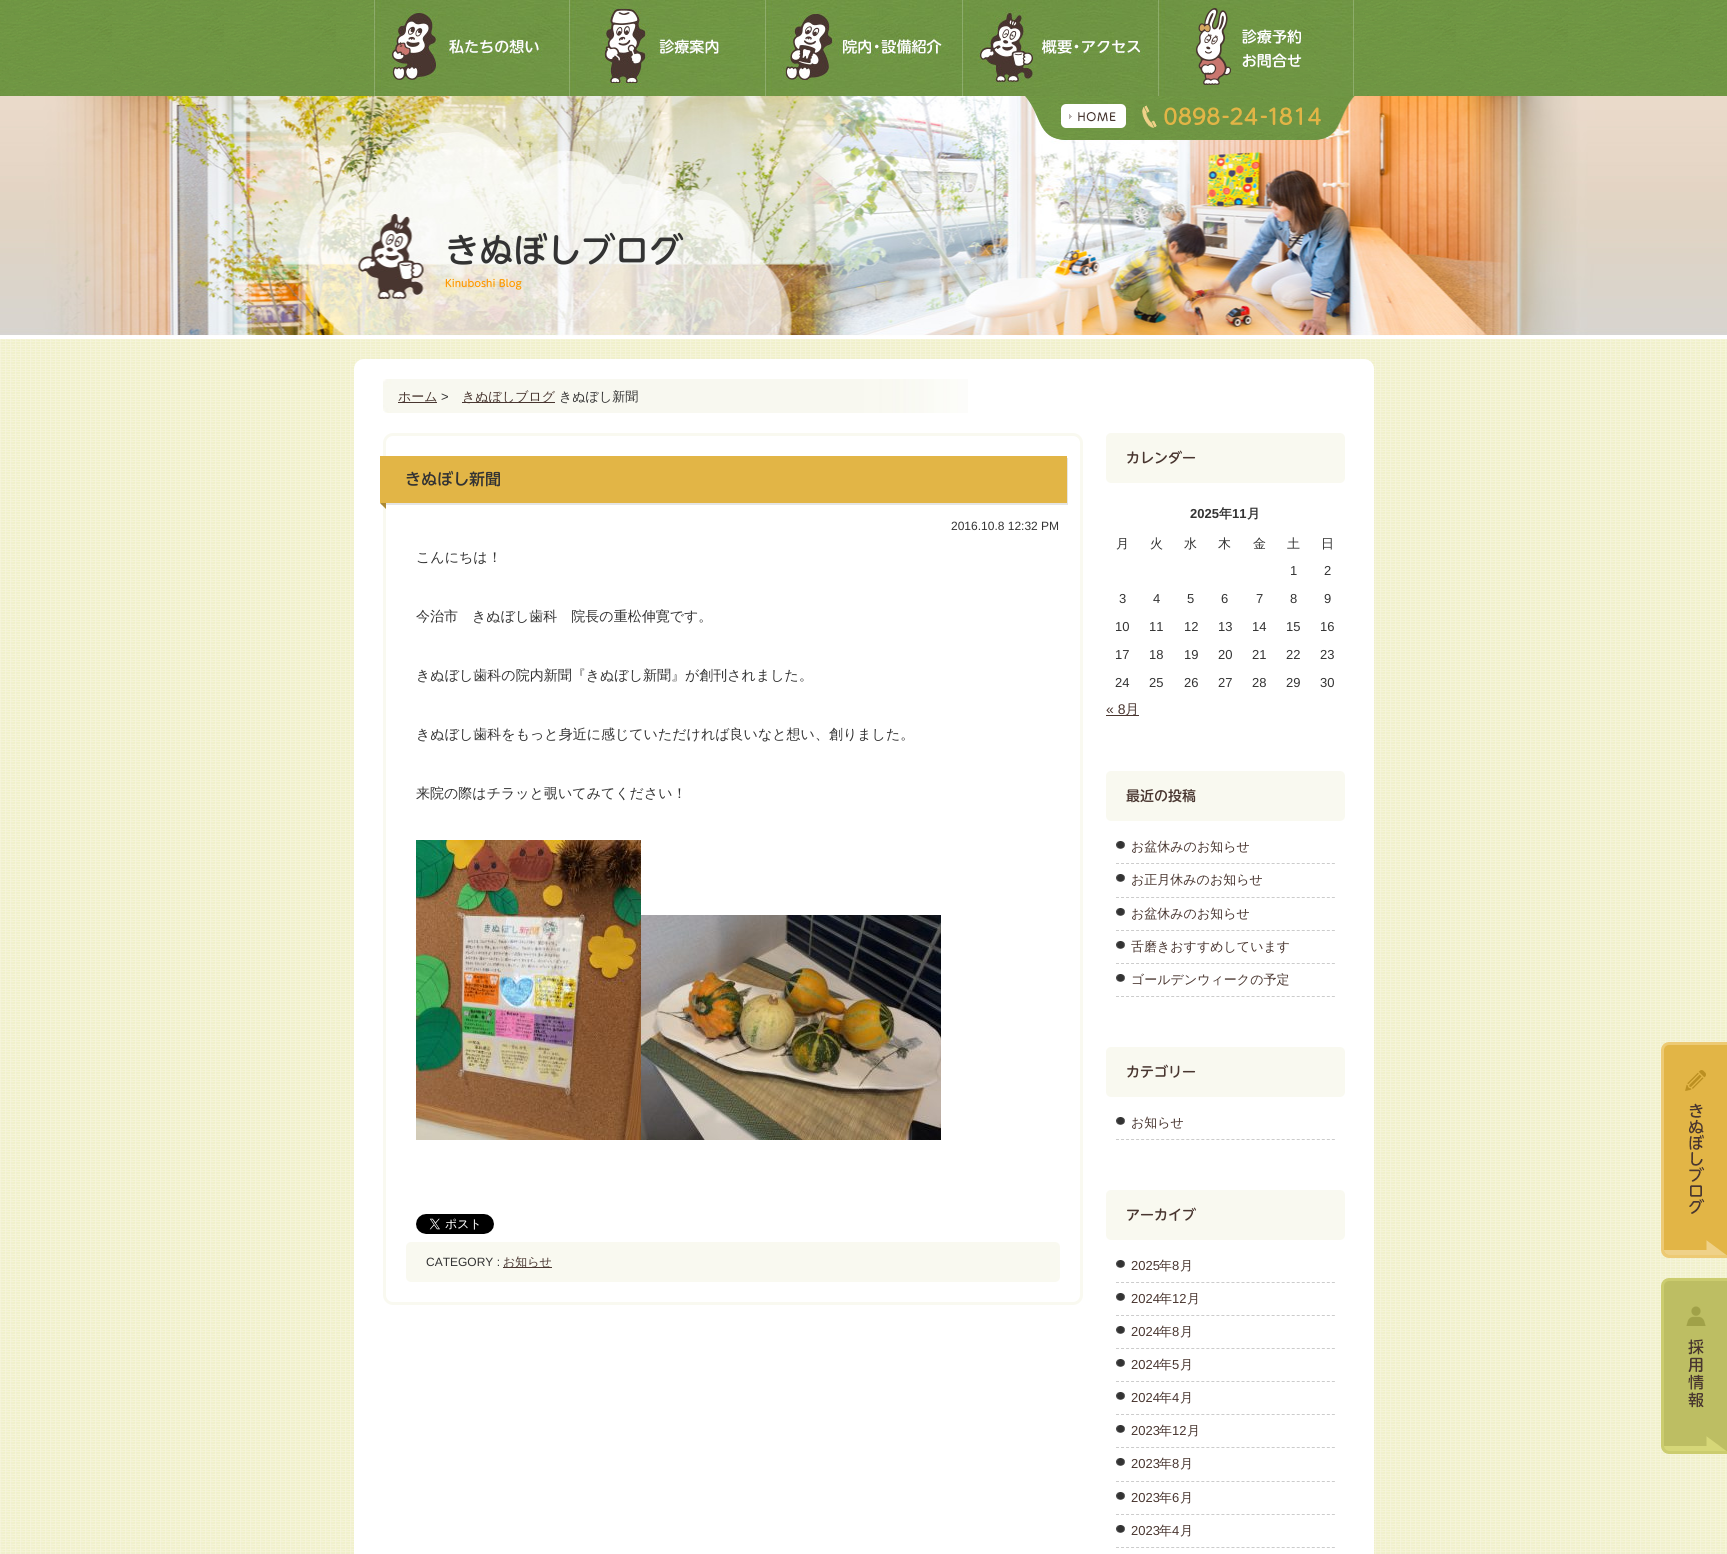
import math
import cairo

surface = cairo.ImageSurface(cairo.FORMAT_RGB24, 1727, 1554)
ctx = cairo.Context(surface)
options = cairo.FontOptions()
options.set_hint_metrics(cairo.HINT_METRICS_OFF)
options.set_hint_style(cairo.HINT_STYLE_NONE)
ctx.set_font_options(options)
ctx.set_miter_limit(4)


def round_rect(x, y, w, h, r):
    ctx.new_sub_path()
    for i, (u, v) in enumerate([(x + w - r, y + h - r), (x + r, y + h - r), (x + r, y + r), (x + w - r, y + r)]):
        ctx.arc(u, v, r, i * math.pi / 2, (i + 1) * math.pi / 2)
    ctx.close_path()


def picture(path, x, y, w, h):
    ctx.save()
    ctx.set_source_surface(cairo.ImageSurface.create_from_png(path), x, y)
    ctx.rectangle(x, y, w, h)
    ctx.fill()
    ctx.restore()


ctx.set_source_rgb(1, 1, 1)
ctx.paint()
picture("img1.png", 0, 339, 1727, 1215)
picture("img2.png", 0, 0, 1727, 96)
picture("img3.png", 374, 0, 195, 96)
picture("img4.png", 569, 0, 196, 96)
picture("img5.png", 765, 0, 197, 96)
picture("img6.png", 962, 0, 196, 96)
picture("img7.png", 1158, 0, 196, 96)
picture("img9.png", 0, 96, 1727, 243)
picture("img8.png", 1025, 96, 329, 44)
ctx.select_font_face("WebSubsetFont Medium")
ctx.set_font_size(34)
ctx.set_source_rgb(0.2, 0.2, 0.2)
ctx.move_to(445, 263)
ctx.show_text("きぬぼしブログ")
ctx.set_font_size(10)
ctx.set_source_rgb(1, 0.6, 0)
ctx.move_to(445, 287)
ctx.show_text("Kinuboshi Blog")
ctx.set_source_rgb(1, 1, 1)
round_rect(354, 359, 1020, 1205, 10)
ctx.fill()
picture("img10.png", 383, 379, 585, 34)
ctx.set_source_rgb(0.286, 0.212, 0.188)
ctx.rectangle(398, 402, 39, 1)
ctx.fill()
ctx.select_font_face("WenQuanYi Zen Hei Medium")
ctx.set_font_size(13)
ctx.move_to(398, 401)
ctx.show_text("ホーム")
ctx.select_font_face("Liberation Sans")
ctx.set_source_rgb(0.2, 0.2, 0.2)
ctx.move_to(441, 401)
ctx.show_text(">")
ctx.set_source_rgb(0.286, 0.212, 0.188)
ctx.rectangle(462, 402, 93, 1)
ctx.fill()
ctx.select_font_face("WenQuanYi Zen Hei Medium")
ctx.move_to(462, 401)
ctx.show_text("きぬぼしブログ")
ctx.set_source_rgb(0.2, 0.2, 0.2)
ctx.move_to(559, 401)
ctx.show_text("きぬぼし新聞")
round_rect(384.5, 434.5, 697, 869, 8.5)
ctx.set_source_rgb(0.973, 0.973, 0.941)
ctx.set_line_width(3)
ctx.stroke()
picture("img11.png", 380, 456, 688, 53)
ctx.select_font_face("WebSubsetFont Medium")
ctx.set_font_size(16)
ctx.set_source_rgb(0.2, 0.2, 0.2)
ctx.move_to(405, 485)
ctx.show_text("きぬぼし新聞")
ctx.select_font_face("Liberation Sans")
ctx.set_font_size(12)
ctx.move_to(951, 530)
ctx.show_text("2016.10.8 12:32 PM")
ctx.select_font_face("WenQuanYi Zen Hei Medium")
ctx.set_font_size(14)
ctx.move_to(416, 562)
ctx.show_text("こんにちは！")
ctx.move_to(416, 621)
ctx.show_text("今治市　きぬぼし歯科　院長の重松伸寛です。")
ctx.move_to(416, 680)
ctx.show_text("きぬぼし歯科の院内新聞『きぬぼし新聞』が創刊されました。")
ctx.move_to(416, 739)
ctx.show_text("きぬぼし歯科をもっと身近に感じていただければ良いなと想い、創りました。")
ctx.move_to(416, 798)
ctx.show_text("来院の際はチラッと覗いてみてください！")
picture("img12.png", 416, 840, 225, 300)
picture("img13.png", 641, 915, 300, 225)
picture("img14.png", 416, 1214, 78, 20)
ctx.set_source_rgb(0.973, 0.973, 0.941)
round_rect(406, 1242, 654, 40, 5)
ctx.fill()
ctx.select_font_face("Liberation Sans")
ctx.set_font_size(12)
ctx.set_source_rgb(0.2, 0.2, 0.2)
ctx.move_to(426, 1266)
ctx.show_text("CATEGORY :")
ctx.set_source_rgb(0.286, 0.212, 0.188)
ctx.rectangle(503, 1267, 49, 1)
ctx.fill()
ctx.select_font_face("WenQuanYi Zen Hei Medium")
ctx.move_to(503, 1266)
ctx.show_text("お知らせ")
ctx.set_source_rgb(0.973, 0.973, 0.941)
round_rect(1106, 433, 239, 50, 5)
ctx.fill()
ctx.select_font_face("WebSubsetFont Medium")
ctx.set_font_size(14)
ctx.set_source_rgb(0.286, 0.212, 0.188)
ctx.move_to(1126, 463)
ctx.show_text("カレンダー")
ctx.select_font_face("Liberation Sans", cairo.FONT_SLANT_NORMAL, cairo.FONT_WEIGHT_BOLD)
ctx.set_font_size(13)
ctx.set_source_rgb(0.2, 0.2, 0.2)
ctx.move_to(1190, 518)
ctx.show_text("2025")
ctx.select_font_face("WenQuanYi Zen Hei", cairo.FONT_SLANT_NORMAL, cairo.FONT_WEIGHT_BOLD)
ctx.move_to(1219, 518)
ctx.show_text("年")
ctx.select_font_face("Liberation Sans", cairo.FONT_SLANT_NORMAL, cairo.FONT_WEIGHT_BOLD)
ctx.move_to(1232, 518)
ctx.show_text("11")
ctx.select_font_face("WenQuanYi Zen Hei", cairo.FONT_SLANT_NORMAL, cairo.FONT_WEIGHT_BOLD)
ctx.move_to(1247, 518)
ctx.show_text("月")
ctx.select_font_face("WenQuanYi Zen Hei Medium")
ctx.move_to(1116, 548)
ctx.show_text("月")
ctx.move_to(1150, 548)
ctx.show_text("火")
ctx.move_to(1184, 548)
ctx.show_text("水")
ctx.move_to(1218, 548)
ctx.show_text("木")
ctx.move_to(1253, 548)
ctx.show_text("金")
ctx.move_to(1287, 548)
ctx.show_text("土")
ctx.move_to(1321, 548)
ctx.show_text("日")
ctx.select_font_face("Liberation Sans")
ctx.move_to(1290, 575)
ctx.show_text("1")
ctx.move_to(1324, 575)
ctx.show_text("2")
ctx.move_to(1119, 603)
ctx.show_text("3")
ctx.move_to(1153, 603)
ctx.show_text("4")
ctx.move_to(1187, 603)
ctx.show_text("5")
ctx.move_to(1221, 603)
ctx.show_text("6")
ctx.move_to(1256, 603)
ctx.show_text("7")
ctx.move_to(1290, 603)
ctx.show_text("8")
ctx.move_to(1324, 603)
ctx.show_text("9")
ctx.move_to(1115, 631)
ctx.show_text("10")
ctx.move_to(1149, 631)
ctx.show_text("11")
ctx.move_to(1184, 631)
ctx.show_text("12")
ctx.move_to(1218, 631)
ctx.show_text("13")
ctx.move_to(1252, 631)
ctx.show_text("14")
ctx.move_to(1286, 631)
ctx.show_text("15")
ctx.move_to(1320, 631)
ctx.show_text("16")
ctx.move_to(1115, 659)
ctx.show_text("17")
ctx.move_to(1149, 659)
ctx.show_text("18")
ctx.move_to(1184, 659)
ctx.show_text("19")
ctx.move_to(1218, 659)
ctx.show_text("20")
ctx.move_to(1252, 659)
ctx.show_text("21")
ctx.move_to(1286, 659)
ctx.show_text("22")
ctx.move_to(1320, 659)
ctx.show_text("23")
ctx.move_to(1115, 687)
ctx.show_text("24")
ctx.move_to(1149, 687)
ctx.show_text("25")
ctx.move_to(1184, 687)
ctx.show_text("26")
ctx.move_to(1218, 687)
ctx.show_text("27")
ctx.move_to(1252, 687)
ctx.show_text("28")
ctx.move_to(1286, 687)
ctx.show_text("29")
ctx.move_to(1320, 687)
ctx.show_text("30")
ctx.set_font_size(14)
ctx.set_source_rgb(0.286, 0.212, 0.188)
ctx.move_to(1106, 714)
ctx.show_text("« 8")
ctx.rectangle(1106, 715, 33, 1)
ctx.fill()
ctx.select_font_face("WenQuanYi Zen Hei Medium")
ctx.move_to(1125, 714)
ctx.show_text("月")
ctx.set_source_rgb(0.973, 0.973, 0.941)
round_rect(1106, 771, 239, 50, 5)
ctx.fill()
ctx.select_font_face("WebSubsetFont Medium")
ctx.set_source_rgb(0.286, 0.212, 0.188)
ctx.move_to(1126, 801)
ctx.show_text("最近の投稿")
picture("img15.png", 1116, 841, 9, 8)
ctx.new_path()
ctx.move_to(1116, 863.5)
ctx.line_to(1335, 863.5)
ctx.set_source_rgb(0.8, 0.8, 0.8)
ctx.set_line_width(1)
ctx.set_dash([3, 2.02])
ctx.stroke()
ctx.select_font_face("WenQuanYi Zen Hei Medium")
ctx.set_font_size(13)
ctx.set_source_rgb(0.286, 0.212, 0.188)
ctx.move_to(1131, 851)
ctx.show_text("お盆休みのお知らせ")
picture("img15.png", 1116, 874, 9, 8)
ctx.new_path()
ctx.move_to(1116, 897.5)
ctx.line_to(1335, 897.5)
ctx.set_source_rgb(0.8, 0.8, 0.8)
ctx.stroke()
ctx.set_source_rgb(0.286, 0.212, 0.188)
ctx.move_to(1131, 884)
ctx.show_text("お正月休みのお知らせ")
picture("img15.png", 1116, 908, 9, 8)
ctx.new_path()
ctx.move_to(1116, 930.5)
ctx.line_to(1335, 930.5)
ctx.set_source_rgb(0.8, 0.8, 0.8)
ctx.stroke()
ctx.set_source_rgb(0.286, 0.212, 0.188)
ctx.move_to(1131, 918)
ctx.show_text("お盆休みのお知らせ")
picture("img15.png", 1116, 941, 9, 8)
ctx.new_path()
ctx.move_to(1116, 963.5)
ctx.line_to(1335, 963.5)
ctx.set_source_rgb(0.8, 0.8, 0.8)
ctx.stroke()
ctx.set_source_rgb(0.286, 0.212, 0.188)
ctx.move_to(1131, 951)
ctx.show_text("舌磨きおすすめしています")
picture("img15.png", 1116, 974, 9, 8)
ctx.new_path()
ctx.move_to(1116, 996.5)
ctx.line_to(1335, 996.5)
ctx.set_source_rgb(0.8, 0.8, 0.8)
ctx.stroke()
ctx.set_source_rgb(0.286, 0.212, 0.188)
ctx.move_to(1131, 984)
ctx.show_text("ゴールデンウィークの予定")
ctx.set_source_rgb(0.973, 0.973, 0.941)
round_rect(1106, 1047, 239, 50, 5)
ctx.fill()
ctx.select_font_face("WebSubsetFont Medium")
ctx.set_font_size(14)
ctx.set_source_rgb(0.286, 0.212, 0.188)
ctx.move_to(1126, 1077)
ctx.show_text("カテゴリー")
picture("img15.png", 1116, 1117, 9, 8)
ctx.new_path()
ctx.move_to(1116, 1139.5)
ctx.line_to(1335, 1139.5)
ctx.set_source_rgb(0.8, 0.8, 0.8)
ctx.stroke()
ctx.select_font_face("WenQuanYi Zen Hei Medium")
ctx.set_font_size(13)
ctx.set_source_rgb(0.286, 0.212, 0.188)
ctx.move_to(1131, 1127)
ctx.show_text("お知らせ")
ctx.set_source_rgb(0.973, 0.973, 0.941)
round_rect(1106, 1190, 239, 50, 5)
ctx.fill()
ctx.select_font_face("WebSubsetFont Medium")
ctx.set_font_size(14)
ctx.set_source_rgb(0.286, 0.212, 0.188)
ctx.move_to(1126, 1220)
ctx.show_text("アーカイブ")
picture("img15.png", 1116, 1260, 9, 8)
ctx.new_path()
ctx.move_to(1116, 1282.5)
ctx.line_to(1335, 1282.5)
ctx.set_source_rgb(0.8, 0.8, 0.8)
ctx.stroke()
ctx.select_font_face("Liberation Sans")
ctx.set_font_size(13)
ctx.set_source_rgb(0.286, 0.212, 0.188)
ctx.move_to(1131, 1270)
ctx.show_text("2025")
ctx.select_font_face("WenQuanYi Zen Hei Medium")
ctx.move_to(1159, 1270)
ctx.show_text("年")
ctx.select_font_face("Liberation Sans")
ctx.move_to(1172, 1270)
ctx.show_text("8")
ctx.select_font_face("WenQuanYi Zen Hei Medium")
ctx.move_to(1180, 1270)
ctx.show_text("月")
picture("img15.png", 1116, 1293, 9, 8)
ctx.new_path()
ctx.move_to(1116, 1315.5)
ctx.line_to(1335, 1315.5)
ctx.set_source_rgb(0.8, 0.8, 0.8)
ctx.stroke()
ctx.select_font_face("Liberation Sans")
ctx.set_source_rgb(0.286, 0.212, 0.188)
ctx.move_to(1131, 1303)
ctx.show_text("2024")
ctx.select_font_face("WenQuanYi Zen Hei Medium")
ctx.move_to(1159, 1303)
ctx.show_text("年")
ctx.select_font_face("Liberation Sans")
ctx.move_to(1172, 1303)
ctx.show_text("12")
ctx.select_font_face("WenQuanYi Zen Hei Medium")
ctx.move_to(1187, 1303)
ctx.show_text("月")
picture("img15.png", 1116, 1326, 9, 8)
ctx.new_path()
ctx.move_to(1116, 1348.5)
ctx.line_to(1335, 1348.5)
ctx.set_source_rgb(0.8, 0.8, 0.8)
ctx.stroke()
ctx.select_font_face("Liberation Sans")
ctx.set_source_rgb(0.286, 0.212, 0.188)
ctx.move_to(1131, 1336)
ctx.show_text("2024")
ctx.select_font_face("WenQuanYi Zen Hei Medium")
ctx.move_to(1159, 1336)
ctx.show_text("年")
ctx.select_font_face("Liberation Sans")
ctx.move_to(1172, 1336)
ctx.show_text("8")
ctx.select_font_face("WenQuanYi Zen Hei Medium")
ctx.move_to(1180, 1336)
ctx.show_text("月")
picture("img15.png", 1116, 1359, 9, 8)
ctx.new_path()
ctx.move_to(1116, 1381.5)
ctx.line_to(1335, 1381.5)
ctx.set_source_rgb(0.8, 0.8, 0.8)
ctx.stroke()
ctx.select_font_face("Liberation Sans")
ctx.set_source_rgb(0.286, 0.212, 0.188)
ctx.move_to(1131, 1369)
ctx.show_text("2024")
ctx.select_font_face("WenQuanYi Zen Hei Medium")
ctx.move_to(1159, 1369)
ctx.show_text("年")
ctx.select_font_face("Liberation Sans")
ctx.move_to(1172, 1369)
ctx.show_text("5")
ctx.select_font_face("WenQuanYi Zen Hei Medium")
ctx.move_to(1180, 1369)
ctx.show_text("月")
picture("img15.png", 1116, 1392, 9, 8)
ctx.new_path()
ctx.move_to(1116, 1414.5)
ctx.line_to(1335, 1414.5)
ctx.set_source_rgb(0.8, 0.8, 0.8)
ctx.stroke()
ctx.select_font_face("Liberation Sans")
ctx.set_source_rgb(0.286, 0.212, 0.188)
ctx.move_to(1131, 1402)
ctx.show_text("2024")
ctx.select_font_face("WenQuanYi Zen Hei Medium")
ctx.move_to(1159, 1402)
ctx.show_text("年")
ctx.select_font_face("Liberation Sans")
ctx.move_to(1172, 1402)
ctx.show_text("4")
ctx.select_font_face("WenQuanYi Zen Hei Medium")
ctx.move_to(1180, 1402)
ctx.show_text("月")
picture("img15.png", 1116, 1425, 9, 8)
ctx.new_path()
ctx.move_to(1116, 1447.5)
ctx.line_to(1335, 1447.5)
ctx.set_source_rgb(0.8, 0.8, 0.8)
ctx.stroke()
ctx.select_font_face("Liberation Sans")
ctx.set_source_rgb(0.286, 0.212, 0.188)
ctx.move_to(1131, 1435)
ctx.show_text("2023")
ctx.select_font_face("WenQuanYi Zen Hei Medium")
ctx.move_to(1159, 1435)
ctx.show_text("年")
ctx.select_font_face("Liberation Sans")
ctx.move_to(1172, 1435)
ctx.show_text("12")
ctx.select_font_face("WenQuanYi Zen Hei Medium")
ctx.move_to(1187, 1435)
ctx.show_text("月")
picture("img15.png", 1116, 1458, 9, 8)
ctx.new_path()
ctx.move_to(1116, 1481.5)
ctx.line_to(1335, 1481.5)
ctx.set_source_rgb(0.8, 0.8, 0.8)
ctx.stroke()
ctx.select_font_face("Liberation Sans")
ctx.set_source_rgb(0.286, 0.212, 0.188)
ctx.move_to(1131, 1468)
ctx.show_text("2023")
ctx.select_font_face("WenQuanYi Zen Hei Medium")
ctx.move_to(1159, 1468)
ctx.show_text("年")
ctx.select_font_face("Liberation Sans")
ctx.move_to(1172, 1468)
ctx.show_text("8")
ctx.select_font_face("WenQuanYi Zen Hei Medium")
ctx.move_to(1180, 1468)
ctx.show_text("月")
picture("img15.png", 1116, 1492, 9, 8)
ctx.new_path()
ctx.move_to(1116, 1514.5)
ctx.line_to(1335, 1514.5)
ctx.set_source_rgb(0.8, 0.8, 0.8)
ctx.stroke()
ctx.select_font_face("Liberation Sans")
ctx.set_source_rgb(0.286, 0.212, 0.188)
ctx.move_to(1131, 1502)
ctx.show_text("2023")
ctx.select_font_face("WenQuanYi Zen Hei Medium")
ctx.move_to(1159, 1502)
ctx.show_text("年")
ctx.select_font_face("Liberation Sans")
ctx.move_to(1172, 1502)
ctx.show_text("6")
ctx.select_font_face("WenQuanYi Zen Hei Medium")
ctx.move_to(1180, 1502)
ctx.show_text("月")
picture("img15.png", 1116, 1525, 9, 8)
ctx.new_path()
ctx.move_to(1116, 1547.5)
ctx.line_to(1335, 1547.5)
ctx.set_source_rgb(0.8, 0.8, 0.8)
ctx.stroke()
ctx.select_font_face("Liberation Sans")
ctx.set_source_rgb(0.286, 0.212, 0.188)
ctx.move_to(1131, 1535)
ctx.show_text("2023")
ctx.select_font_face("WenQuanYi Zen Hei Medium")
ctx.move_to(1159, 1535)
ctx.show_text("年")
ctx.select_font_face("Liberation Sans")
ctx.move_to(1172, 1535)
ctx.show_text("4")
ctx.select_font_face("WenQuanYi Zen Hei Medium")
ctx.move_to(1180, 1535)
ctx.show_text("月")
picture("img16.png", 1661, 1042, 66, 216)
picture("img17.png", 1661, 1278, 66, 176)
surface.write_to_png("page.png")
